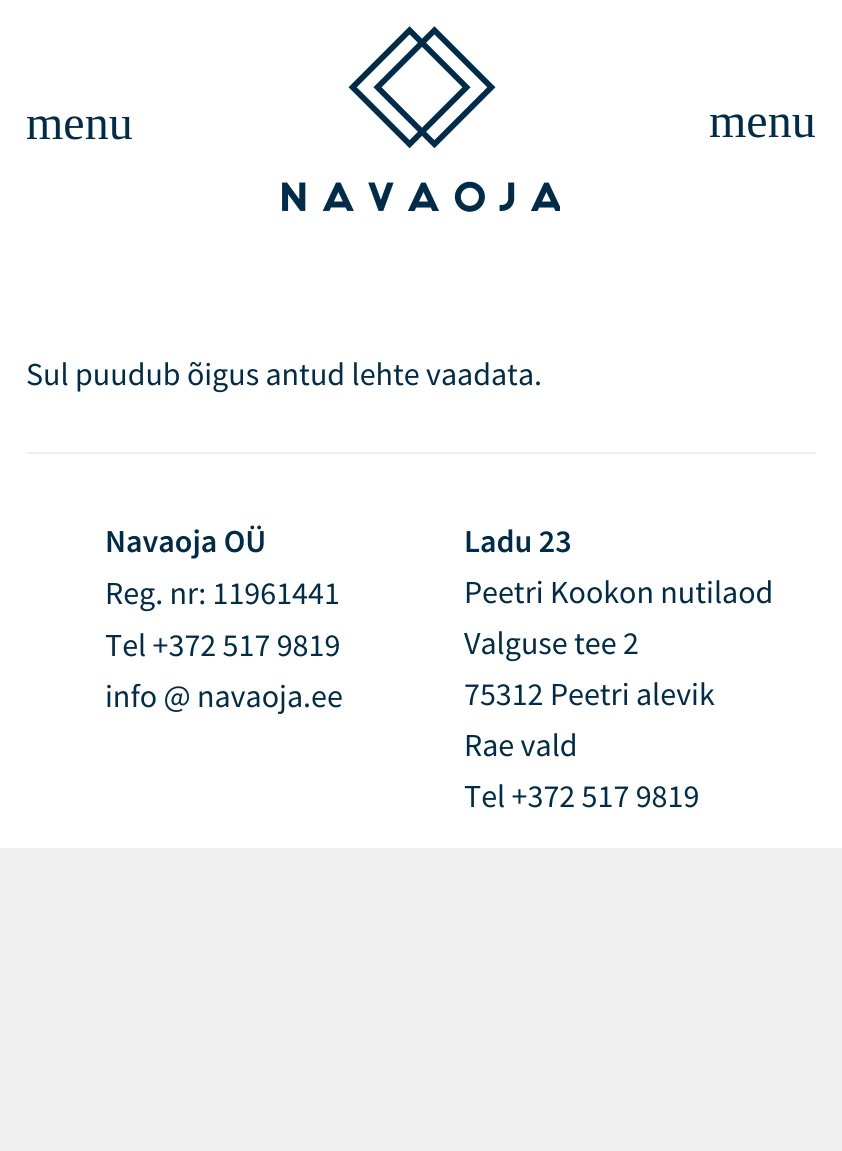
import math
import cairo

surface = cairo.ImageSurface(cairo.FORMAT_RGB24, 842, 1151)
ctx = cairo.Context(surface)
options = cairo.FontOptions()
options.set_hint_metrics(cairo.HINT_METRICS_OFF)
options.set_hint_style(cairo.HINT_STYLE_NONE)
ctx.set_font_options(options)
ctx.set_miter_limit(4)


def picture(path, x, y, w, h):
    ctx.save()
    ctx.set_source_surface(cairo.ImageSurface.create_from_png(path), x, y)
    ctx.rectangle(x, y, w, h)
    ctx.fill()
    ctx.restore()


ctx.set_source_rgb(0.937, 0.937, 0.937)
ctx.paint()
ctx.set_source_rgb(1, 1, 1)
ctx.rectangle(0, 0, 842, 848)
ctx.fill()
ctx.select_font_face("Liberation Serif")
ctx.set_font_size(48)
ctx.set_source_rgb(0, 0.169, 0.286)
ctx.move_to(26, 139)
ctx.show_text("menu")
picture("img1.png", 282, 26, 278, 186)
ctx.move_to(709, 137)
ctx.show_text("menu")
ctx.select_font_face("Source Sans Pro")
ctx.set_font_size(32)
ctx.move_to(26, 385)
ctx.show_text("Sul puudub õigus antud lehte vaadata.")
ctx.set_source_rgb(0.929, 0.941, 0.945)
ctx.rectangle(26, 452, 790, 2)
ctx.fill()
ctx.select_font_face("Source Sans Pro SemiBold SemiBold")
ctx.set_source_rgb(0, 0.169, 0.286)
ctx.move_to(105, 552)
ctx.show_text("Navaoja OÜ")
ctx.select_font_face("Source Sans Pro")
ctx.move_to(105, 604)
ctx.show_text("Reg. nr: 11961441")
ctx.move_to(105, 656)
ctx.show_text("Tel +372 517 9819")
ctx.move_to(105, 707)
ctx.show_text("info @ navaoja.ee")
ctx.select_font_face("Source Sans Pro SemiBold SemiBold")
ctx.move_to(464, 552)
ctx.show_text("Ladu 23")
ctx.select_font_face("Source Sans Pro")
ctx.move_to(464, 603)
ctx.show_text("Peetri Kookon nutilaod")
ctx.move_to(464, 654)
ctx.show_text("Valguse tee 2")
ctx.move_to(464, 705)
ctx.show_text("75312 Peetri alevik")
ctx.move_to(464, 756)
ctx.show_text("Rae vald")
ctx.move_to(464, 807)
ctx.show_text("Tel +372 517 9819")
surface.write_to_png("page.png")
